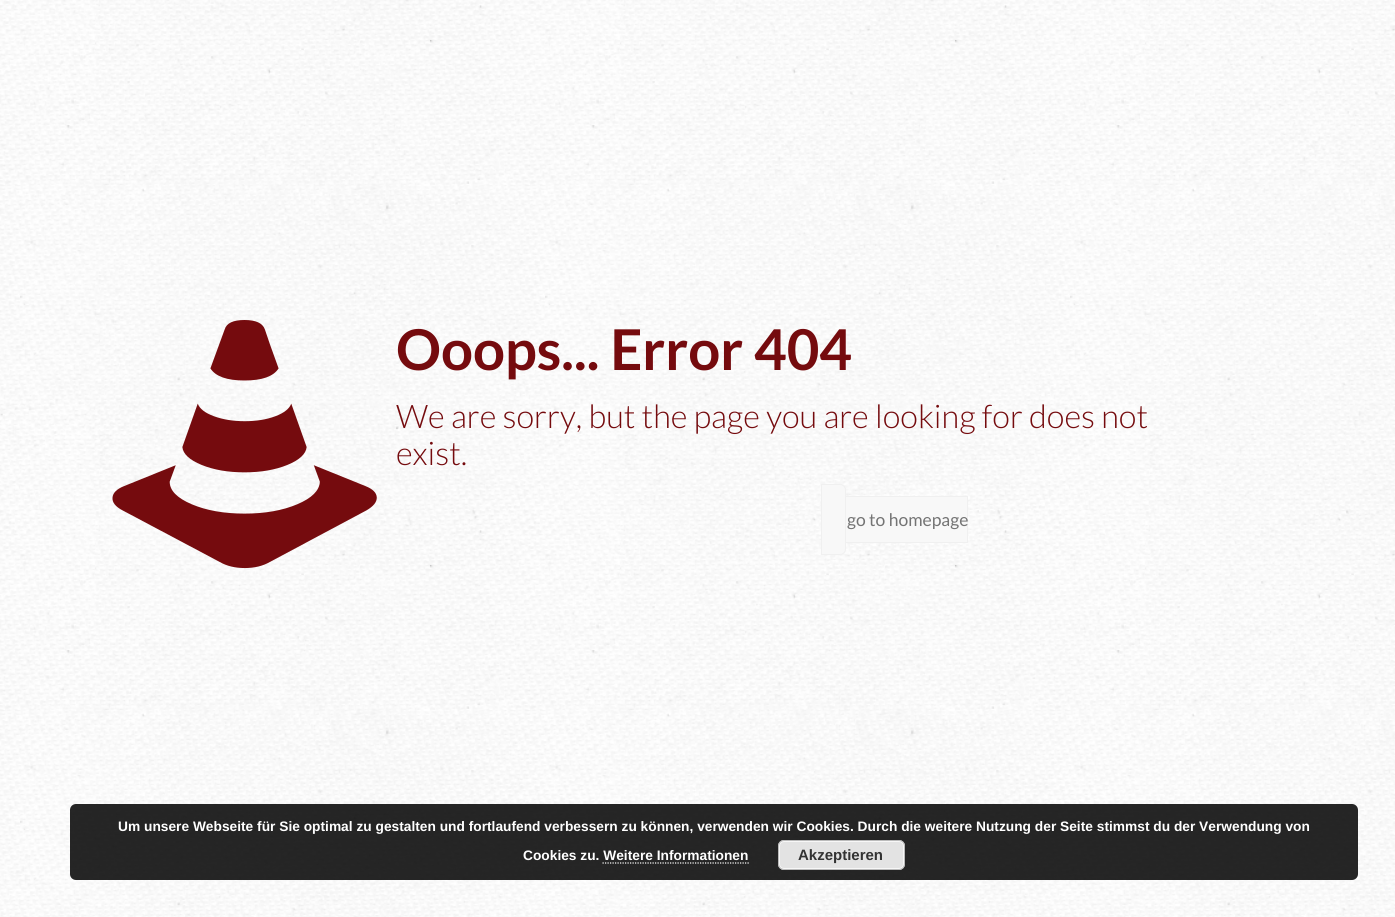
import math
import cairo

surface = cairo.ImageSurface(cairo.FORMAT_RGB24, 1395, 917)
ctx = cairo.Context(surface)
options = cairo.FontOptions()
options.set_hint_metrics(cairo.HINT_METRICS_OFF)
options.set_hint_style(cairo.HINT_STYLE_NONE)
ctx.set_font_options(options)
ctx.set_miter_limit(4)


def round_rect(x, y, w, h, r):
    ctx.new_sub_path()
    for i, (u, v) in enumerate([(x + w - r, y + h - r), (x + r, y + h - r), (x + r, y + r), (x + w - r, y + r)]):
        ctx.arc(u, v, r, i * math.pi / 2, (i + 1) * math.pi / 2)
    ctx.close_path()


def picture(path, x, y, w, h):
    ctx.save()
    ctx.set_source_surface(cairo.ImageSurface.create_from_png(path), x, y)
    ctx.rectangle(x, y, w, h)
    ctx.fill()
    ctx.restore()


ctx.set_source_rgb(1, 1, 1)
ctx.paint()
picture("img1.png", 0, 0, 1395, 917)
picture("img2.png", 112, 320, 265, 249)
ctx.select_font_face("Lato", cairo.FONT_SLANT_NORMAL, cairo.FONT_WEIGHT_BOLD)
ctx.set_font_size(56.25)
ctx.set_source_rgb(0.459, 0.043, 0.055)
ctx.move_to(396, 370)
ctx.show_text("Ooops... Error 404")
ctx.select_font_face("Lato Light")
ctx.set_font_size(32.5)
ctx.move_to(396, 428)
ctx.show_text("We are sorry, but the page you are looking for does not")
ctx.move_to(396, 465)
ctx.show_text("exist.")
ctx.set_source_rgb(0.969, 0.969, 0.969)
ctx.rectangle(846, 497, 121, 45)
ctx.fill()
ctx.rectangle(821.5, 496.5, 146, 46)
ctx.set_source_rgb(0.941, 0.941, 0.941)
ctx.set_line_width(1)
ctx.stroke()
ctx.select_font_face("Lato")
ctx.set_font_size(17.5)
ctx.set_source_rgb(0.455, 0.455, 0.455)
ctx.move_to(847, 526)
ctx.show_text("go to homepage")
ctx.set_source_rgb(0.969, 0.969, 0.969)
ctx.new_path()
ctx.move_to(821.5, 484.5)
ctx.line_to(840, 484.5)
ctx.curve_to(843, 484.5, 845.5, 487, 845.5, 490)
ctx.line_to(845.5, 549)
ctx.curve_to(845.5, 552, 843, 554.5, 840, 554.5)
ctx.line_to(821.5, 554.5)
ctx.close_path()
ctx.fill_preserve()
ctx.set_source_rgb(0.941, 0.941, 0.941)
ctx.stroke()
ctx.set_source_rgba(0, 0, 0, 0.85)
round_rect(70, 804, 1288, 76, 6)
ctx.fill()
ctx.select_font_face("Liberation Sans", cairo.FONT_SLANT_NORMAL, cairo.FONT_WEIGHT_BOLD)
ctx.set_font_size(13.75)
ctx.set_source_rgb(1, 1, 1)
ctx.move_to(118, 831)
ctx.show_text("Um unsere Webseite für Sie optimal zu gestalten und fortlaufend verbessern zu können, verwenden wir Cookies. Durch die weitere Nutzung der Seite stimmst du der Verwendung von")
ctx.move_to(523, 860)
ctx.show_text("Cookies zu. Weitere Informationen")
ctx.set_source_rgb(0.89, 0.89, 0.89)
round_rect(778, 840, 127, 30, 6)
ctx.fill()
round_rect(779.5, 841.5, 124, 27, 4.5)
ctx.set_source_rgb(0.965, 0.965, 0.965)
ctx.stroke()
round_rect(778.5, 840.5, 126, 29, 5.5)
ctx.set_source_rgb(0.733, 0.733, 0.733)
ctx.stroke()
ctx.set_font_size(15)
ctx.set_source_rgb(0.2, 0.2, 0.2)
ctx.move_to(798, 860)
ctx.show_text("Akzeptieren")
ctx.new_path()
ctx.move_to(602.5, 863)
ctx.line_to(749, 863)
ctx.set_source_rgb(1, 1, 1)
ctx.set_line_width(1.2)
ctx.set_dash([1.25, 1.25])
ctx.stroke()
surface.write_to_png("page.png")
